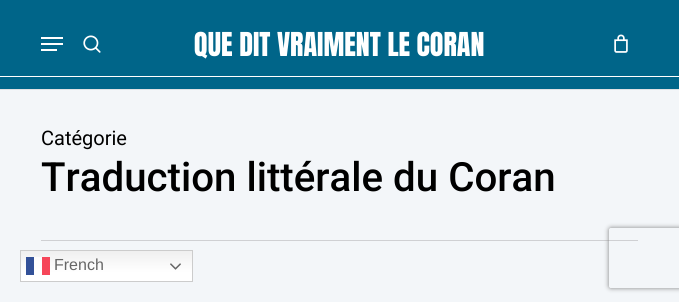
import math
import cairo

surface = cairo.ImageSurface(cairo.FORMAT_RGB24, 679, 302)
ctx = cairo.Context(surface)
options = cairo.FontOptions()
options.set_hint_metrics(cairo.HINT_METRICS_OFF)
options.set_hint_style(cairo.HINT_STYLE_NONE)
ctx.set_font_options(options)
ctx.set_miter_limit(4)


def round_rect(x, y, w, h, r):
    ctx.new_sub_path()
    for i, (u, v) in enumerate([(x + w - r, y + h - r), (x + r, y + h - r), (x + r, y + r), (x + w - r, y + r)]):
        ctx.arc(u, v, r, i * math.pi / 2, (i + 1) * math.pi / 2)
    ctx.close_path()


def shadow(x, y, w, h, r, blur, alpha):
    ctx.push_group_with_content(cairo.CONTENT_ALPHA)
    ctx.set_operator(cairo.OPERATOR_SOURCE)
    for i in range(15, -16, -2):
        e = blur * i / 6
        if min(w, h) + 2 * e > 0:
            ctx.set_source_rgba(0, 0, 0, alpha * math.erfc((i - 1) / 8.5) / 2)
            round_rect(x - e, y - e, w + 2 * e, h + 2 * e, max(0, min(r + e + blur * .6, min(w, h) / 2 + e)))
            ctx.fill()
    ctx.mask(ctx.pop_group())


def picture(path, x, y, w, h):
    ctx.save()
    ctx.set_source_surface(cairo.ImageSurface.create_from_png(path), x, y)
    ctx.rectangle(x, y, w, h)
    ctx.fill()
    ctx.restore()


ctx.set_source_rgb(0.953, 0.961, 0.973)
ctx.paint()
ctx.set_source_rgb(0, 0.396, 0.537)
ctx.rectangle(0, 0, 679, 89)
ctx.fill()
ctx.set_source_rgb(0.878, 0.882, 0.894)
ctx.rectangle(0, 89, 679, 1)
ctx.fill()
ctx.set_source_rgb(1, 1, 1)
ctx.rectangle(0, 76, 679, 1)
ctx.fill()
ctx.select_font_face("Anton")
ctx.set_font_size(28)
ctx.move_to(194, 56)
ctx.show_text("QUE DIT VRAIMENT LE CORAN")
ctx.rectangle(41, 37, 22, 2)
ctx.fill()
ctx.rectangle(41, 49, 16, 2)
ctx.fill()
ctx.rectangle(41, 43, 22, 2)
ctx.fill()
picture("img1.png", 83, 35, 18, 18)
picture("img2.png", 614, 34, 14, 19)
ctx.set_source_rgb(0.812, 0.816, 0.827)
ctx.rectangle(41, 240, 597, 1)
ctx.fill()
ctx.select_font_face("Roboto")
ctx.set_font_size(20)
ctx.set_source_rgb(0, 0, 0)
ctx.move_to(41, 145)
ctx.show_text("Catégorie")
ctx.select_font_face("Roboto Medium")
ctx.set_font_size(40.25)
ctx.move_to(41, 191)
ctx.show_text("Traduction littérale du Coran")
gradient = cairo.LinearGradient(107, 250, 107, 282)
gradient.add_color_stop_rgba(0, 0.937, 0.937, 0.937, 1)
gradient.add_color_stop_rgba(0.7, 1, 1, 1, 1)
ctx.set_source(gradient)
ctx.rectangle(21, 251, 171, 30)
ctx.fill()
gradient = cairo.LinearGradient(107, 250, 107, 282)
gradient.add_color_stop_rgba(0, 0.988, 0.988, 0.988, 1)
gradient.add_color_stop_rgba(0.7, 1, 1, 1, 1)
ctx.set_source(gradient)
ctx.rectangle(34, 257, 8, 18)
ctx.fill()
ctx.rectangle(20.5, 250.5, 172, 31)
ctx.set_source_rgb(0.8, 0.8, 0.8)
ctx.set_line_width(1)
ctx.stroke()
ctx.set_source_rgb(0.2, 0.318, 0.596)
ctx.rectangle(26, 257, 8, 18)
ctx.fill()
ctx.set_source_rgb(0.961, 0.275, 0.349)
ctx.rectangle(42, 257, 8, 18)
ctx.fill()
ctx.select_font_face("Liberation Sans")
ctx.set_font_size(16)
ctx.set_source_rgb(0.4, 0.4, 0.4)
ctx.move_to(54, 270)
ctx.show_text("French")
picture("img3.png", 170, 263, 11, 7)
ctx.save()
ctx.set_fill_rule(cairo.FILL_RULE_EVEN_ODD)
ctx.new_path()
ctx.move_to(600, 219)
ctx.line_to(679, 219)
ctx.line_to(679, 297)
ctx.line_to(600, 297)
ctx.close_path()
ctx.move_to(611, 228)
ctx.line_to(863, 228)
ctx.curve_to(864, 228, 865, 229, 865, 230)
ctx.line_to(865, 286)
ctx.curve_to(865, 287, 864, 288, 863, 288)
ctx.line_to(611, 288)
ctx.curve_to(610, 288, 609, 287, 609, 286)
ctx.line_to(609, 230)
ctx.curve_to(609, 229, 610, 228, 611, 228)
ctx.close_path()
ctx.clip()
ctx.set_source_rgb(0.502, 0.502, 0.502)
shadow(609, 228, 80, 60, 2, 2.5, 1)
ctx.restore()
surface.write_to_png("page.png")
